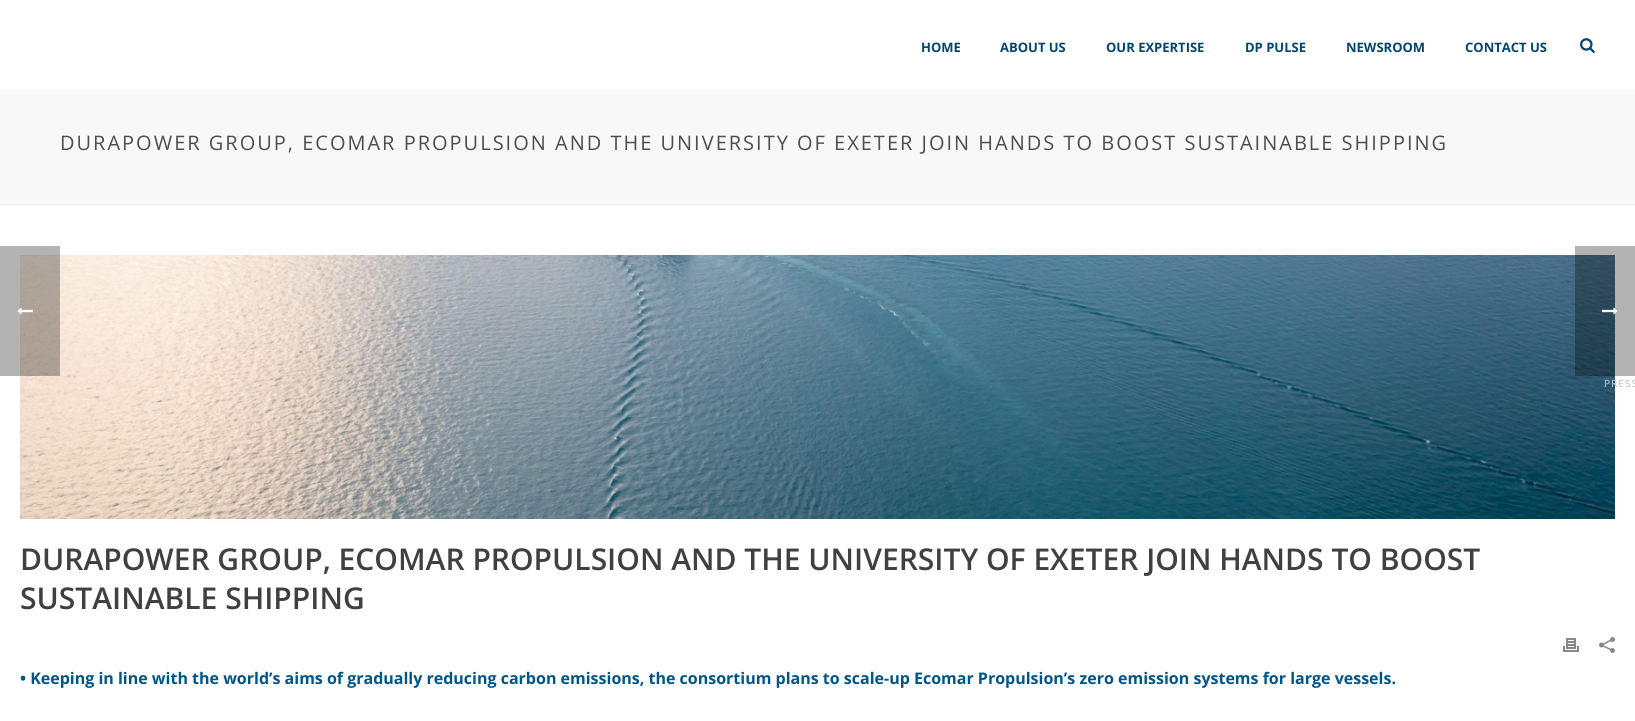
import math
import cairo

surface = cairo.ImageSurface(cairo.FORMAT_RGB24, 1635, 721)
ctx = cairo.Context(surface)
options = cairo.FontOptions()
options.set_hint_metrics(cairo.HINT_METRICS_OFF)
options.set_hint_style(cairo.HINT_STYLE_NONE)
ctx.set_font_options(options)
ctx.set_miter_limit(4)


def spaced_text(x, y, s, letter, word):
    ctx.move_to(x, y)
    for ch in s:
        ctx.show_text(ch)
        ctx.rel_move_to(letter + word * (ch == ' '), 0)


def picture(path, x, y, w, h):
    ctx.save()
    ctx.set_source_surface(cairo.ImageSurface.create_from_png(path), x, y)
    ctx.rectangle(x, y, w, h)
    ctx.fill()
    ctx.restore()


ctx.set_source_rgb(1, 1, 1)
ctx.paint()
ctx.set_source_rgb(0.969, 0.969, 0.969)
ctx.rectangle(0, 90, 1635, 114)
ctx.fill()
ctx.set_source_rgb(0.929, 0.929, 0.929)
ctx.rectangle(0, 204, 1635, 1)
ctx.fill()
ctx.select_font_face("Open Sans", cairo.FONT_SLANT_NORMAL, cairo.FONT_WEIGHT_BOLD)
ctx.set_font_size(13)
ctx.set_source_rgb(0.012, 0.275, 0.431)
ctx.move_to(921, 52)
ctx.show_text("HOME")
ctx.move_to(1000, 52)
ctx.show_text("ABOUT US")
ctx.move_to(1106, 52)
ctx.show_text("OUR EXPERTISE")
ctx.move_to(1245, 52)
ctx.show_text("DP PULSE")
ctx.move_to(1346, 52)
ctx.show_text("NEWSROOM")
ctx.move_to(1465, 52)
ctx.show_text("CONTACT US")
picture("img1.png", 1580, 38, 15, 15)
ctx.select_font_face("Open Sans")
ctx.set_font_size(20)
ctx.set_source_rgb(0.302, 0.302, 0.302)
spaced_text(60, 150, "DURAPOWER GROUP, ECOMAR PROPULSION AND THE UNIVERSITY OF EXETER JOIN HANDS TO BOOST SUSTAINABLE SHIPPING", 2, 0)
picture("img2.png", 20, 255, 1595, 264)
ctx.select_font_face("Open Sans SemiBold")
ctx.set_font_size(30)
ctx.set_source_rgb(0.251, 0.251, 0.251)
ctx.move_to(20, 570)
ctx.show_text("DURAPOWER GROUP, ECOMAR PROPULSION AND THE UNIVERSITY OF EXETER JOIN HANDS TO BOOST")
ctx.move_to(20, 609)
ctx.show_text("SUSTAINABLE SHIPPING")
picture("img3.png", 1563, 638, 16, 14)
picture("img4.png", 1599, 637, 16, 16)
ctx.select_font_face("Open Sans", cairo.FONT_SLANT_NORMAL, cairo.FONT_WEIGHT_BOLD)
ctx.set_font_size(16)
ctx.set_source_rgb(0, 0.337, 0.537)
ctx.move_to(20, 684)
ctx.show_text("• Keeping in line with the world’s aims of gradually reducing carbon emissions, the consortium plans to scale-up Ecomar Propulsion’s zero emission systems for large vessels.")
ctx.set_source_rgba(0, 0, 0, 0.3)
ctx.rectangle(0, 246, 60, 130)
ctx.fill()
picture("img5.png", 17, 307, 16, 8)
ctx.rectangle(1575, 246, 60, 130)
ctx.fill()
picture("img6.png", 1602, 307, 16, 8)
ctx.select_font_face("Open Sans Medium")
ctx.set_font_size(10)
ctx.set_source_rgb(0.718, 0.776, 0.808)
spaced_text(1604, 387, "PRESS", 1, 0)
surface.write_to_png("page.png")
